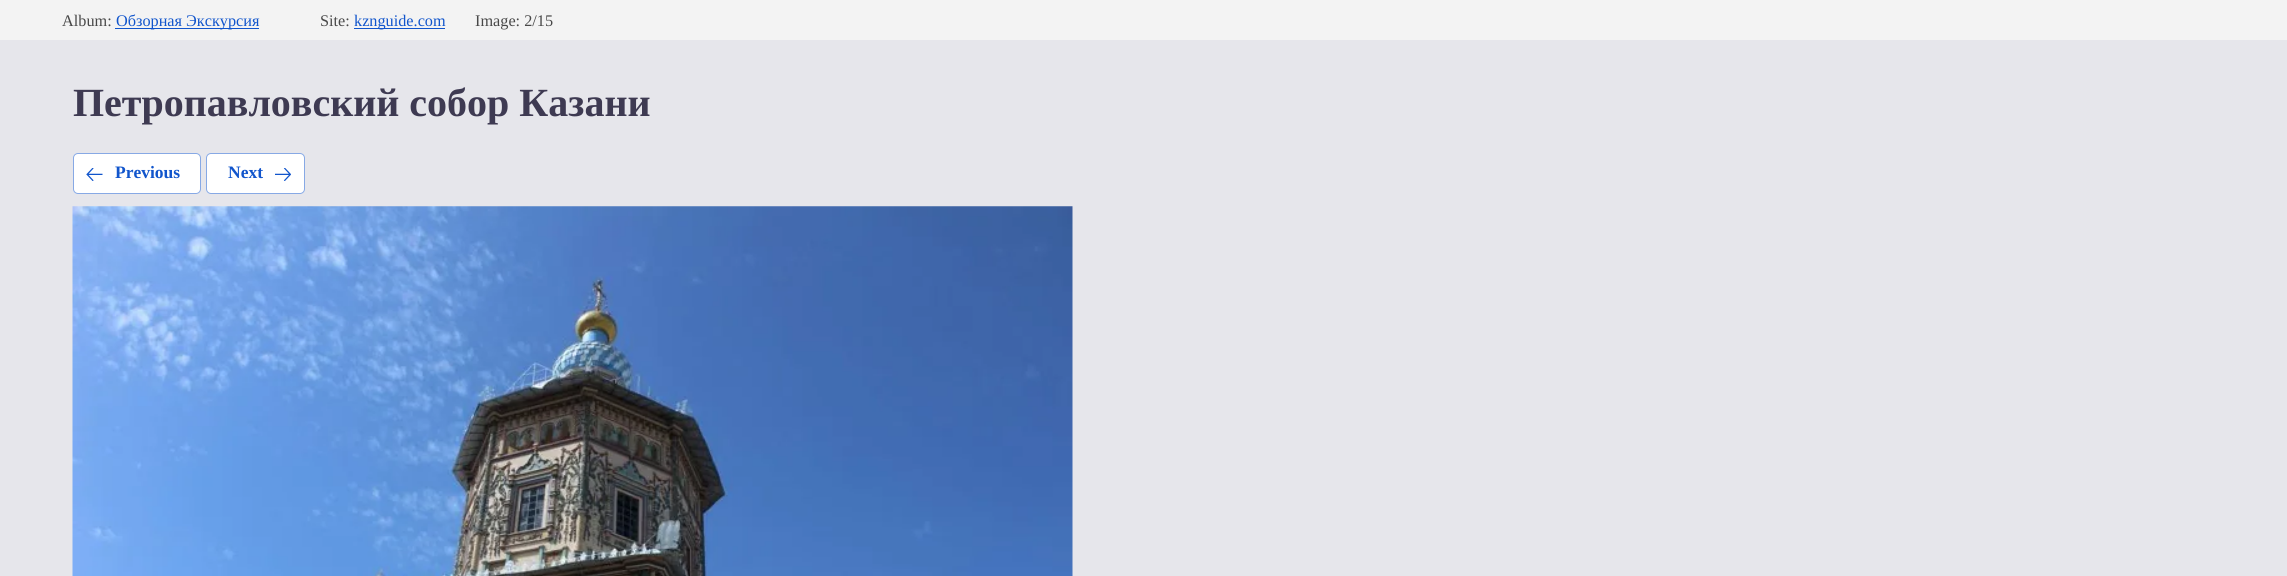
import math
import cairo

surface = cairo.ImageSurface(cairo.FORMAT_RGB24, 2287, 576)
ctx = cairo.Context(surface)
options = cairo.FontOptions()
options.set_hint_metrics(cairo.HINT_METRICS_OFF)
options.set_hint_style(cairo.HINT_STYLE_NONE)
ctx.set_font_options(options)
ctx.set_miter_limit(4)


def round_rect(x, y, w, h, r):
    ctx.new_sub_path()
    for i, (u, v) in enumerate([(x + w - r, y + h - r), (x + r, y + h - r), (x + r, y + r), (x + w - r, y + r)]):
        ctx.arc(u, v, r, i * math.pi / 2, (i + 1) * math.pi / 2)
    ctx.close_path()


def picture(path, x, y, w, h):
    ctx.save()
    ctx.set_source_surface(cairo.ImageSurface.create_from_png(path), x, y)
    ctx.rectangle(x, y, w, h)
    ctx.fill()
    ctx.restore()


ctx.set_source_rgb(0.902, 0.902, 0.918)
ctx.paint()
ctx.set_source_rgb(0.953, 0.953, 0.953)
ctx.rectangle(0, 0, 2287, 40)
ctx.fill()
ctx.select_font_face("Liberation Serif")
ctx.set_font_size(16.25)
ctx.set_source_rgb(0.282, 0.282, 0.282)
ctx.move_to(62, 26)
ctx.show_text("Album:")
ctx.set_source_rgb(0.067, 0.333, 0.8)
ctx.rectangle(115, 28, 144, 1)
ctx.fill()
ctx.move_to(116, 26)
ctx.show_text("Обзорная Экскурсия")
ctx.set_source_rgb(0.282, 0.282, 0.282)
ctx.move_to(320, 26)
ctx.show_text("Site:")
ctx.set_source_rgb(0.067, 0.333, 0.8)
ctx.rectangle(354, 28, 91, 1)
ctx.fill()
ctx.move_to(354, 26)
ctx.show_text("kznguide.com")
ctx.set_source_rgb(0.282, 0.282, 0.282)
ctx.move_to(475, 26)
ctx.show_text("Image: 2/15")
ctx.select_font_face("Liberation Serif", cairo.FONT_SLANT_NORMAL, cairo.FONT_WEIGHT_BOLD)
ctx.set_font_size(40)
ctx.set_source_rgb(0.243, 0.227, 0.322)
ctx.move_to(73, 116)
ctx.show_text("Петропавловский собор Казани")
ctx.set_source_rgb(1, 1, 1)
round_rect(73, 153, 128, 41, 5)
ctx.fill()
round_rect(73.5, 153.5, 127, 40, 4.5)
ctx.set_source_rgba(0.067, 0.333, 0.8, 0.5)
ctx.set_line_width(1)
ctx.stroke()
picture("img1.png", 86, 168, 17, 13)
ctx.set_font_size(17.5)
ctx.set_source_rgb(0.067, 0.333, 0.8)
ctx.move_to(115, 178)
ctx.show_text("Previous")
ctx.set_source_rgb(1, 1, 1)
round_rect(206, 153, 99, 41, 5)
ctx.fill()
round_rect(206.5, 153.5, 98, 40, 4.5)
ctx.set_source_rgba(0.067, 0.333, 0.8, 0.5)
ctx.stroke()
ctx.set_source_rgb(0.067, 0.333, 0.8)
ctx.move_to(228, 178)
ctx.show_text("Next")
picture("img2.png", 275, 168, 16, 13)
picture("img3.png", 72, 206, 1001, 370)
surface.write_to_png("page.png")
